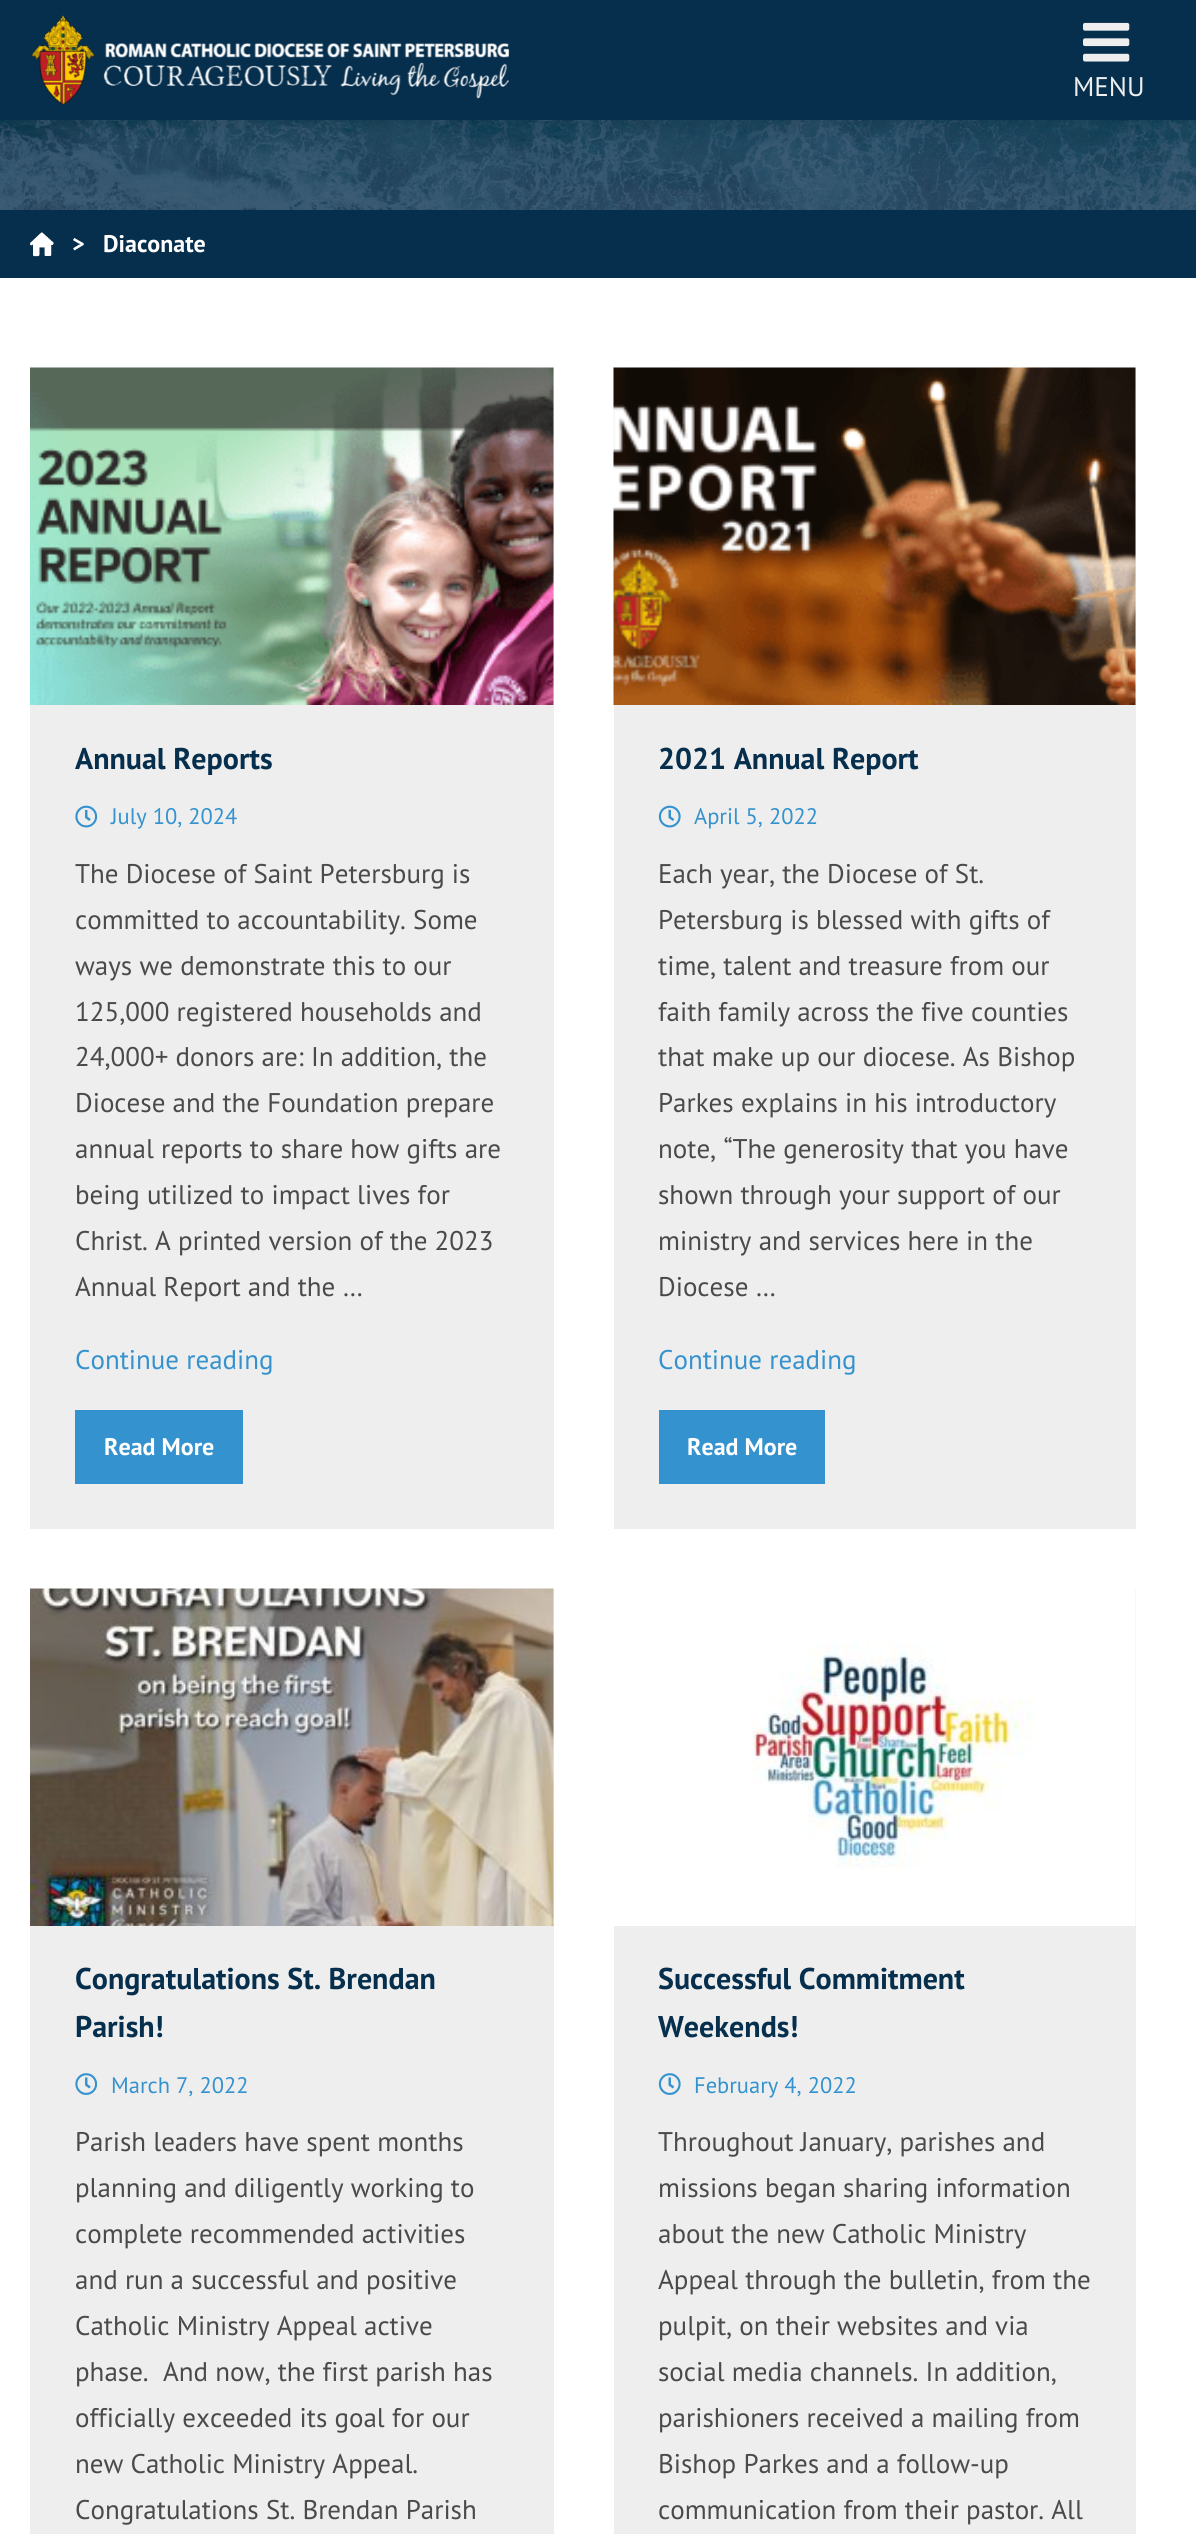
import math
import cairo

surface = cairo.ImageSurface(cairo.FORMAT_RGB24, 1196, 2534)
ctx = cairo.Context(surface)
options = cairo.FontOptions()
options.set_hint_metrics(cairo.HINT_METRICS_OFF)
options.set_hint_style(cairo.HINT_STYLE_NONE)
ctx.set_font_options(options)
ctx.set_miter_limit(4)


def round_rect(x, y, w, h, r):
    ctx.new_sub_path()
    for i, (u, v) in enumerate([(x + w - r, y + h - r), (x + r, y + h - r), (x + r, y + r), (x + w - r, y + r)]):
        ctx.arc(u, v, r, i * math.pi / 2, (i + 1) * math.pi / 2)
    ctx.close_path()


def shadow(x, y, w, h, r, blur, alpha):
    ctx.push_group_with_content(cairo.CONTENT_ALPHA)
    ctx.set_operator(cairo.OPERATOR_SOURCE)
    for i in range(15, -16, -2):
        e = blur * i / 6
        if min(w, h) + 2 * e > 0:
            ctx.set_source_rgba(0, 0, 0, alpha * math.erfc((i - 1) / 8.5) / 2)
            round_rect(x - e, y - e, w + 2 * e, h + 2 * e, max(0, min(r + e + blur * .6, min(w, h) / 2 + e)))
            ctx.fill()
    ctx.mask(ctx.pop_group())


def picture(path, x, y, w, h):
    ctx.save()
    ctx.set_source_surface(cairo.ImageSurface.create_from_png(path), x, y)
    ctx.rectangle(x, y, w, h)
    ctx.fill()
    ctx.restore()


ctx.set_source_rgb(1, 1, 1)
ctx.paint()
picture("img1.png", 0, 120, 1196, 90)
ctx.set_source_rgb(0, 0, 0)
shadow(0, 0, 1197, 120, 0, 15, 0.15)
ctx.set_source_rgb(0.024, 0.184, 0.302)
ctx.rectangle(0, 0, 1196, 120)
ctx.fill()
picture("img2.png", 30, 15, 479, 90)
picture("img3.png", 1083, 22, 47, 40)
ctx.select_font_face("PT Sans")
ctx.set_font_size(27)
ctx.set_source_rgb(0.933, 0.933, 0.933)
ctx.move_to(1073, 96)
ctx.show_text("MENU")
ctx.set_source_rgb(0.024, 0.184, 0.302)
ctx.rectangle(0, 210, 1196, 68)
ctx.fill()
picture("img4.png", 30, 232, 24, 25)
ctx.select_font_face("PT Sans", cairo.FONT_SLANT_NORMAL, cairo.FONT_WEIGHT_BOLD)
ctx.set_font_size(24)
ctx.set_source_rgb(1, 1, 1)
ctx.move_to(72, 252)
ctx.show_text(">")
ctx.move_to(103, 252)
ctx.show_text("Diaconate")
ctx.set_source_rgb(0.933, 0.933, 0.933)
ctx.rectangle(30, 368, 524, 1161)
ctx.fill()
picture("img5.png", 30, 367, 524, 338)
ctx.set_font_size(30)
ctx.set_source_rgb(0.024, 0.184, 0.302)
ctx.move_to(75, 769)
ctx.show_text("Annual Reports")
picture("img6.png", 75, 805, 23, 23)
ctx.select_font_face("PT Sans")
ctx.set_font_size(22.5)
ctx.set_source_rgb(0.204, 0.573, 0.808)
ctx.move_to(111, 824)
ctx.show_text("July 10, 2024")
ctx.set_font_size(27)
ctx.set_source_rgb(0.29, 0.29, 0.29)
ctx.move_to(75, 883)
ctx.show_text("The Diocese of Saint Petersburg is")
ctx.move_to(75, 929)
ctx.show_text("committed to accountability. Some")
ctx.move_to(75, 975)
ctx.show_text("ways we demonstrate this to our")
ctx.move_to(75, 1021)
ctx.show_text("125,000 registered households and")
ctx.move_to(75, 1066)
ctx.show_text("24,000+ donors are: In addition, the")
ctx.move_to(75, 1112)
ctx.show_text("Diocese and the Foundation prepare")
ctx.move_to(75, 1158)
ctx.show_text("annual reports to share how gifts are")
ctx.move_to(75, 1204)
ctx.show_text("being utilized to impact lives for")
ctx.move_to(75, 1250)
ctx.show_text("Christ. A printed version of the 2023")
ctx.move_to(75, 1296)
ctx.show_text("Annual Report and the …")
ctx.set_source_rgb(0.204, 0.573, 0.808)
ctx.move_to(75, 1369)
ctx.show_text("Continue reading")
ctx.rectangle(75, 1410, 168, 74)
ctx.fill()
ctx.select_font_face("PT Sans", cairo.FONT_SLANT_NORMAL, cairo.FONT_WEIGHT_BOLD)
ctx.set_font_size(24)
ctx.set_source_rgb(1, 1, 1)
ctx.move_to(104, 1455)
ctx.show_text("Read More")
ctx.set_source_rgb(0.933, 0.933, 0.933)
ctx.rectangle(614, 368, 522, 1161)
ctx.fill()
picture("img7.png", 613, 367, 523, 338)
ctx.set_font_size(30)
ctx.set_source_rgb(0.024, 0.184, 0.302)
ctx.move_to(658, 769)
ctx.show_text("2021 Annual Report")
picture("img8.png", 658, 805, 23, 23)
ctx.select_font_face("PT Sans")
ctx.set_font_size(22.5)
ctx.set_source_rgb(0.204, 0.573, 0.808)
ctx.move_to(694, 824)
ctx.show_text("April 5, 2022")
ctx.set_font_size(27)
ctx.set_source_rgb(0.29, 0.29, 0.29)
ctx.move_to(658, 883)
ctx.show_text("Each year, the Diocese of St.")
ctx.move_to(658, 929)
ctx.show_text("Petersburg is blessed with gifts of")
ctx.move_to(658, 975)
ctx.show_text("time, talent and treasure from our")
ctx.move_to(658, 1021)
ctx.show_text("faith family across the five counties")
ctx.move_to(658, 1066)
ctx.show_text("that make up our diocese. As Bishop")
ctx.move_to(658, 1112)
ctx.show_text("Parkes explains in his introductory")
ctx.move_to(658, 1158)
ctx.show_text("note, “The generosity that you have")
ctx.move_to(658, 1204)
ctx.show_text("shown through your support of our")
ctx.move_to(658, 1250)
ctx.show_text("ministry and services here in the")
ctx.move_to(658, 1296)
ctx.show_text("Diocese …")
ctx.set_source_rgb(0.204, 0.573, 0.808)
ctx.move_to(658, 1369)
ctx.show_text("Continue reading")
ctx.rectangle(659, 1410, 166, 74)
ctx.fill()
ctx.select_font_face("PT Sans", cairo.FONT_SLANT_NORMAL, cairo.FONT_WEIGHT_BOLD)
ctx.set_font_size(24)
ctx.set_source_rgb(1, 1, 1)
ctx.move_to(687, 1455)
ctx.show_text("Read More")
ctx.set_source_rgb(0.933, 0.933, 0.933)
ctx.rectangle(30, 1589, 524, 945)
ctx.fill()
picture("img9.png", 30, 1588, 524, 338)
ctx.set_font_size(30)
ctx.set_source_rgb(0.024, 0.184, 0.302)
ctx.move_to(75, 1989)
ctx.show_text("Congratulations St. Brendan")
ctx.move_to(75, 2037)
ctx.show_text("Parish!")
picture("img10.png", 75, 2073, 23, 22)
ctx.select_font_face("PT Sans")
ctx.set_font_size(22.5)
ctx.set_source_rgb(0.204, 0.573, 0.808)
ctx.move_to(111, 2093)
ctx.show_text("March 7, 2022")
ctx.set_font_size(27)
ctx.set_source_rgb(0.29, 0.29, 0.29)
ctx.move_to(75, 2151)
ctx.show_text("Parish leaders have spent months")
ctx.move_to(75, 2197)
ctx.show_text("planning and diligently working to")
ctx.move_to(75, 2243)
ctx.show_text("complete recommended activities")
ctx.move_to(75, 2289)
ctx.show_text("and run a successful and positive")
ctx.move_to(75, 2335)
ctx.show_text("Catholic Ministry Appeal active")
ctx.move_to(75, 2381)
ctx.show_text("phase.  And now, the first parish has")
ctx.move_to(75, 2427)
ctx.show_text("officially exceeded its goal for our")
ctx.move_to(75, 2473)
ctx.show_text("new Catholic Ministry Appeal.")
ctx.move_to(75, 2519)
ctx.show_text("Congratulations St. Brendan Parish")
ctx.set_source_rgb(0.933, 0.933, 0.933)
ctx.rectangle(614, 1589, 522, 945)
ctx.fill()
picture("img11.png", 614, 1589, 522, 337)
ctx.select_font_face("PT Sans", cairo.FONT_SLANT_NORMAL, cairo.FONT_WEIGHT_BOLD)
ctx.set_font_size(30)
ctx.set_source_rgb(0.024, 0.184, 0.302)
ctx.move_to(658, 1989)
ctx.show_text("Successful Commitment")
ctx.move_to(658, 2037)
ctx.show_text("Weekends!")
picture("img12.png", 658, 2073, 23, 22)
ctx.select_font_face("PT Sans")
ctx.set_font_size(22.5)
ctx.set_source_rgb(0.204, 0.573, 0.808)
ctx.move_to(694, 2093)
ctx.show_text("February 4, 2022")
ctx.set_font_size(27)
ctx.set_source_rgb(0.29, 0.29, 0.29)
ctx.move_to(658, 2151)
ctx.show_text("Throughout January, parishes and")
ctx.move_to(658, 2197)
ctx.show_text("missions began sharing information")
ctx.move_to(658, 2243)
ctx.show_text("about the new Catholic Ministry")
ctx.move_to(658, 2289)
ctx.show_text("Appeal through the bulletin, from the")
ctx.move_to(658, 2335)
ctx.show_text("pulpit, on their websites and via")
ctx.move_to(658, 2381)
ctx.show_text("social media channels. In addition,")
ctx.move_to(658, 2427)
ctx.show_text("parishioners received a mailing from")
ctx.move_to(658, 2473)
ctx.show_text("Bishop Parkes and a follow-up")
ctx.move_to(658, 2519)
ctx.show_text("communication from their pastor. All")
surface.write_to_png("page.png")
